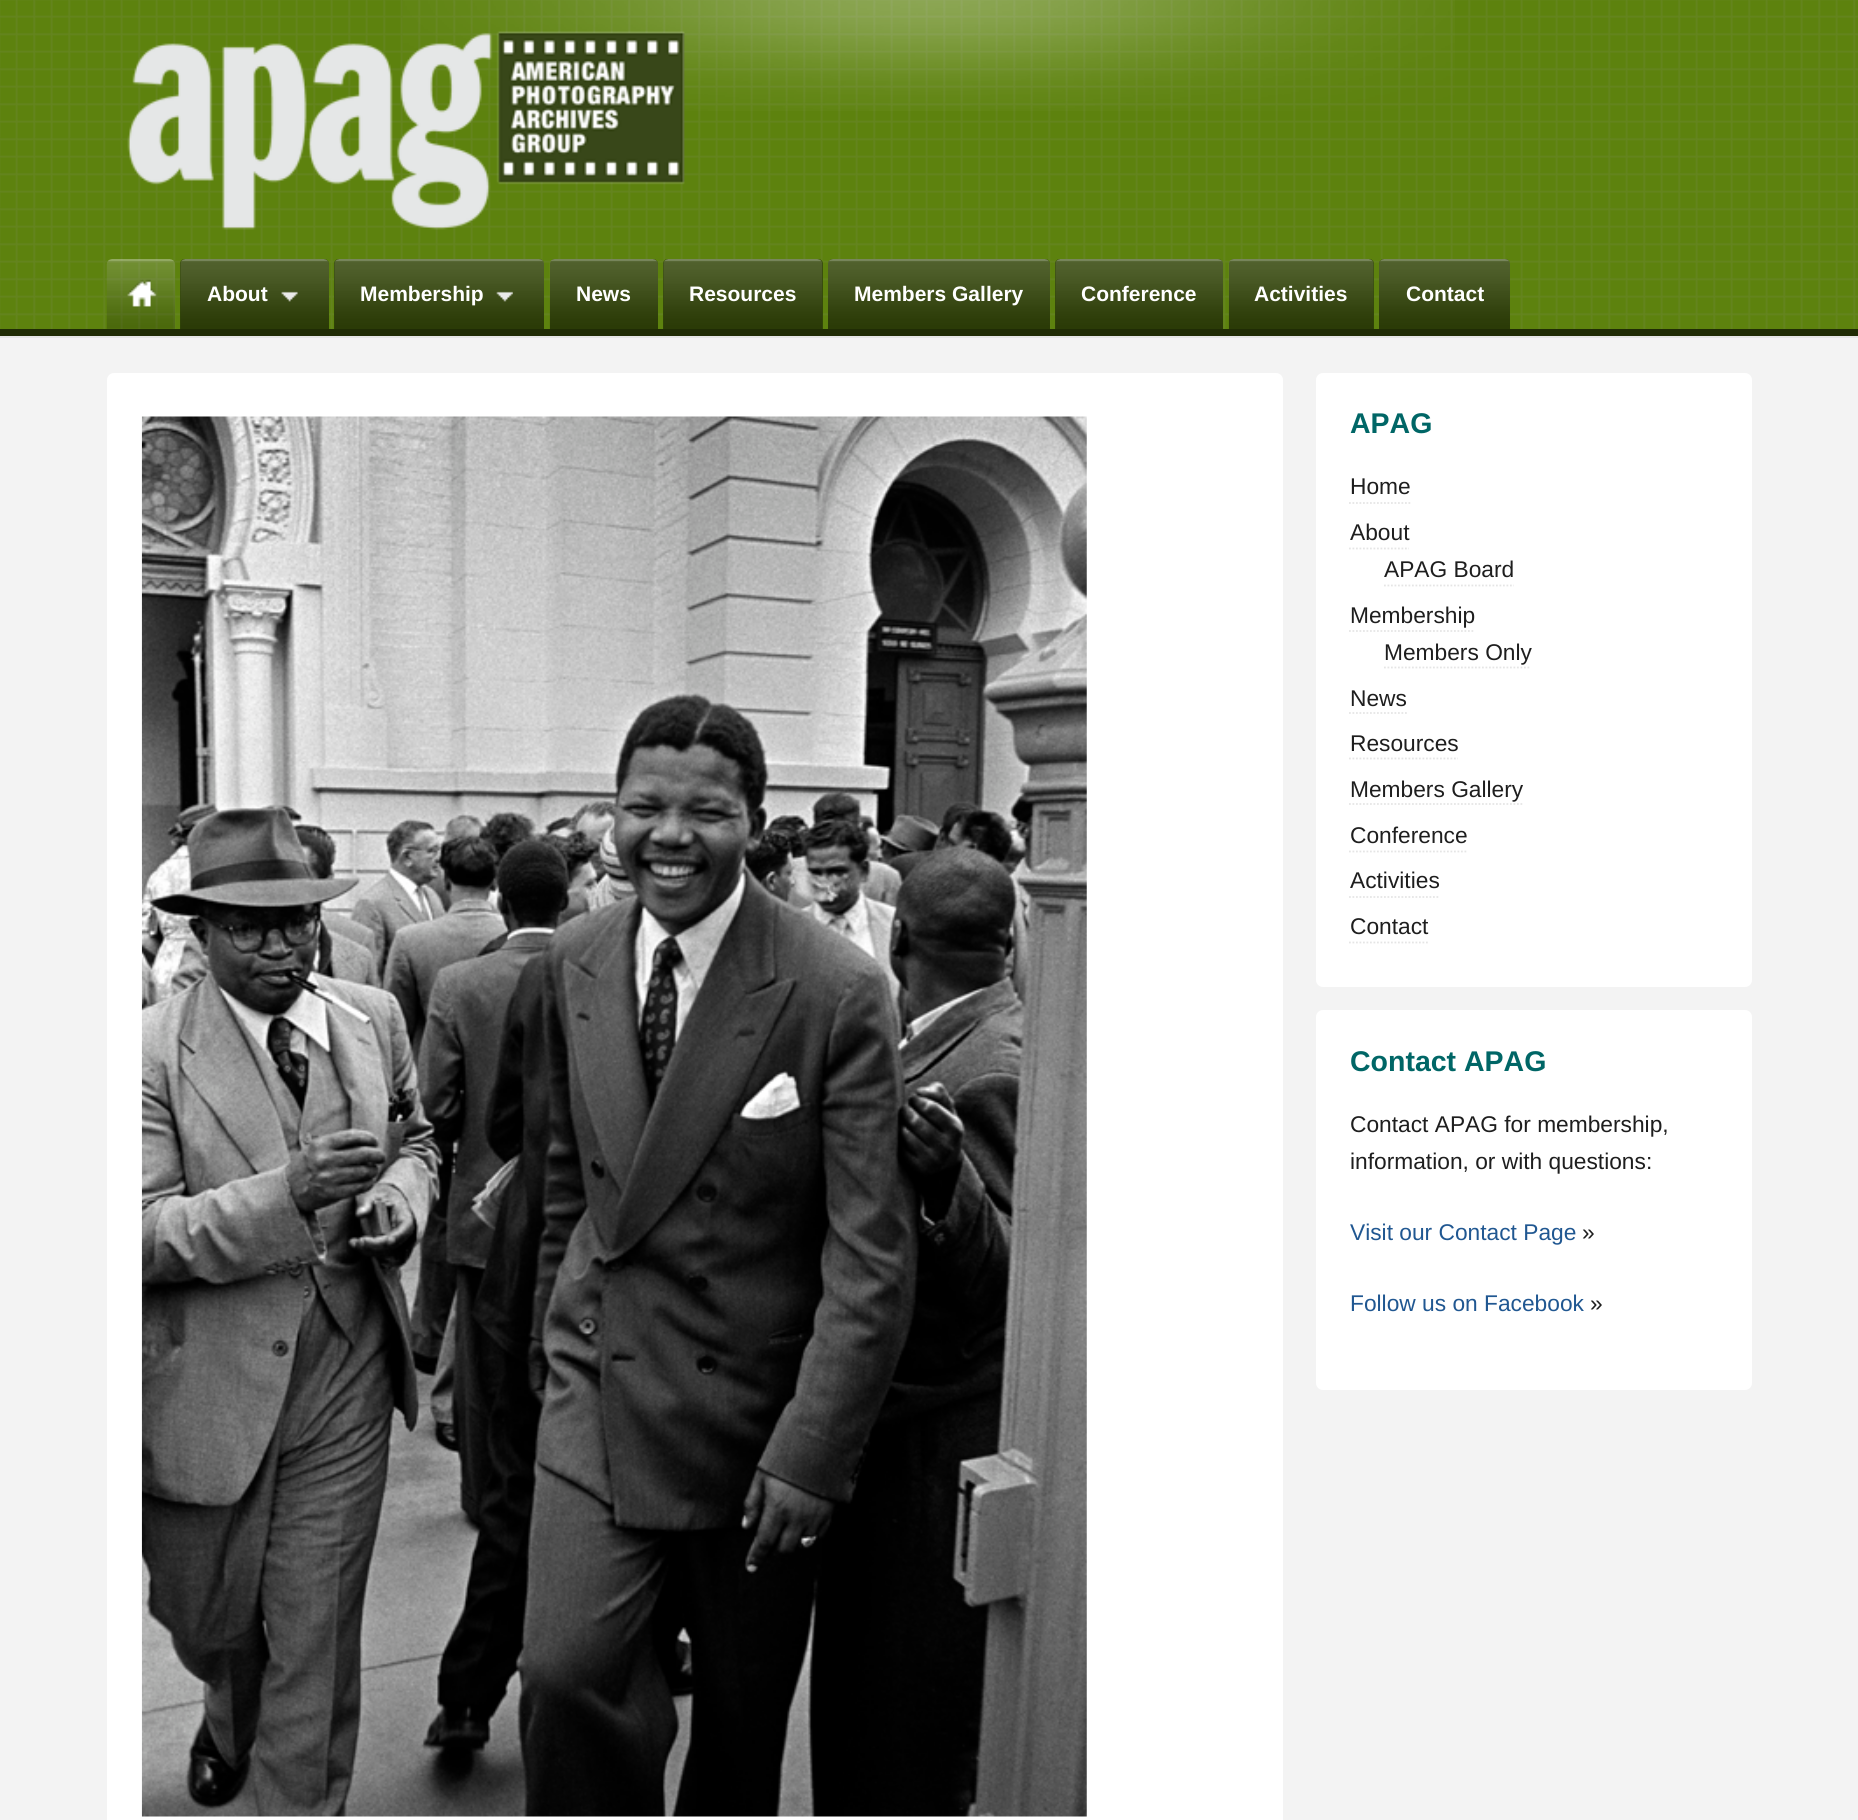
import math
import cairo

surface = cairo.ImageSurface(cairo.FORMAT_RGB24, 1858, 1820)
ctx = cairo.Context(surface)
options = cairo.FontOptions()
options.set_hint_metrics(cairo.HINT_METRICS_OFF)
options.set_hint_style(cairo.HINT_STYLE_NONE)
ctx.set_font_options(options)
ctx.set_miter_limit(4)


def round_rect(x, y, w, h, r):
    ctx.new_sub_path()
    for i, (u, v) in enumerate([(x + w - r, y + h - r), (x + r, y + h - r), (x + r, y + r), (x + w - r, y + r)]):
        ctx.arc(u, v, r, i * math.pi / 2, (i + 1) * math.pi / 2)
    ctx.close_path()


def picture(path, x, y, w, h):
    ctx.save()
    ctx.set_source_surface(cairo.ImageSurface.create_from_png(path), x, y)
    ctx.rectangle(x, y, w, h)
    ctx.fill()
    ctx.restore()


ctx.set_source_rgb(0.365, 0.51, 0.055)
ctx.paint()
picture("img1.png", 0, 0, 1858, 329)
ctx.set_source_rgb(0.902, 0.902, 0.902)
ctx.rectangle(0, 336, 1858, 2)
ctx.fill()
picture("img2.png", 403, 0, 1052, 111)
ctx.set_source_rgb(0.125, 0.173, 0.02)
ctx.rectangle(0, 329, 1858, 7)
ctx.fill()
picture("img3.png", 127, 31, 558, 199)
picture("img4.png", 106, 259, 69, 70)
ctx.set_source_rgb(0.204, 0.286, 0.031)
ctx.new_path()
ctx.move_to(185, 259)
ctx.line_to(324, 259)
ctx.curve_to(327, 259, 329, 261, 329, 264)
ctx.line_to(329, 329)
ctx.line_to(180, 329)
ctx.line_to(180, 264)
ctx.curve_to(180, 261, 182, 259, 185, 259)
ctx.close_path()
ctx.fill()
picture("img5.png", 180, 259, 149, 70)
ctx.select_font_face("Liberation Sans", cairo.FONT_SLANT_NORMAL, cairo.FONT_WEIGHT_BOLD)
ctx.set_font_size(21)
ctx.set_source_rgb(1, 1, 1)
ctx.move_to(207, 301)
ctx.show_text("About")
picture("img6.png", 281, 291, 17, 11)
ctx.set_source_rgb(0.204, 0.286, 0.031)
ctx.new_path()
ctx.move_to(339, 259)
ctx.line_to(539, 259)
ctx.curve_to(542, 259, 544, 261, 544, 264)
ctx.line_to(544, 329)
ctx.line_to(334, 329)
ctx.line_to(334, 264)
ctx.curve_to(334, 261, 336, 259, 339, 259)
ctx.close_path()
ctx.fill()
picture("img7.png", 334, 259, 210, 70)
ctx.set_source_rgb(1, 1, 1)
ctx.move_to(360, 301)
ctx.show_text("Membership")
picture("img8.png", 496, 291, 17, 11)
ctx.set_source_rgb(0.204, 0.286, 0.031)
ctx.new_path()
ctx.move_to(555, 259)
ctx.line_to(653, 259)
ctx.curve_to(656, 259, 658, 261, 658, 264)
ctx.line_to(658, 329)
ctx.line_to(550, 329)
ctx.line_to(550, 264)
ctx.curve_to(550, 261, 552, 259, 555, 259)
ctx.close_path()
ctx.fill()
picture("img9.png", 549, 259, 109, 70)
ctx.set_source_rgb(1, 1, 1)
ctx.move_to(576, 301)
ctx.show_text("News")
ctx.set_source_rgb(0.204, 0.286, 0.031)
ctx.new_path()
ctx.move_to(668, 259)
ctx.line_to(818, 259)
ctx.curve_to(821, 259, 823, 261, 823, 264)
ctx.line_to(823, 329)
ctx.line_to(663, 329)
ctx.line_to(663, 264)
ctx.curve_to(663, 261, 665, 259, 668, 259)
ctx.close_path()
ctx.fill()
picture("img10.png", 663, 259, 160, 70)
ctx.set_source_rgb(1, 1, 1)
ctx.move_to(689, 301)
ctx.show_text("Resources")
ctx.set_source_rgb(0.204, 0.286, 0.031)
ctx.new_path()
ctx.move_to(833, 259)
ctx.line_to(1045, 259)
ctx.curve_to(1048, 259, 1050, 261, 1050, 264)
ctx.line_to(1050, 329)
ctx.line_to(828, 329)
ctx.line_to(828, 264)
ctx.curve_to(828, 261, 830, 259, 833, 259)
ctx.close_path()
ctx.fill()
picture("img11.png", 828, 259, 222, 70)
ctx.set_source_rgb(1, 1, 1)
ctx.move_to(854, 301)
ctx.show_text("Members Gallery")
ctx.set_source_rgb(0.204, 0.286, 0.031)
ctx.new_path()
ctx.move_to(1060, 259)
ctx.line_to(1218, 259)
ctx.curve_to(1221, 259, 1223, 261, 1223, 264)
ctx.line_to(1223, 329)
ctx.line_to(1055, 329)
ctx.line_to(1055, 264)
ctx.curve_to(1055, 261, 1057, 259, 1060, 259)
ctx.close_path()
ctx.fill()
picture("img12.png", 1055, 259, 168, 70)
ctx.set_source_rgb(1, 1, 1)
ctx.move_to(1081, 301)
ctx.show_text("Conference")
ctx.set_source_rgb(0.204, 0.286, 0.031)
ctx.new_path()
ctx.move_to(1234, 259)
ctx.line_to(1369, 259)
ctx.curve_to(1372, 259, 1374, 261, 1374, 264)
ctx.line_to(1374, 329)
ctx.line_to(1229, 329)
ctx.line_to(1229, 264)
ctx.curve_to(1229, 261, 1231, 259, 1234, 259)
ctx.close_path()
ctx.fill()
picture("img13.png", 1228, 259, 146, 70)
ctx.set_source_rgb(1, 1, 1)
ctx.move_to(1254, 301)
ctx.show_text("Activities")
ctx.set_source_rgb(0.204, 0.286, 0.031)
ctx.new_path()
ctx.move_to(1384, 259)
ctx.line_to(1505, 259)
ctx.curve_to(1508, 259, 1510, 261, 1510, 264)
ctx.line_to(1510, 329)
ctx.line_to(1379, 329)
ctx.line_to(1379, 264)
ctx.curve_to(1379, 261, 1381, 259, 1384, 259)
ctx.close_path()
ctx.fill()
picture("img14.png", 1379, 259, 131, 70)
ctx.set_source_rgb(1, 1, 1)
ctx.move_to(1406, 301)
ctx.show_text("Contact")
ctx.set_source_rgb(0.953, 0.953, 0.953)
ctx.rectangle(0, 338, 1858, 1482)
ctx.fill()
ctx.set_source_rgb(1, 1, 1)
round_rect(107, 373, 1176, 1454, 7)
ctx.fill()
picture("img15.png", 141, 416, 946, 1401)
round_rect(1316, 373, 436, 614, 7)
ctx.fill()
ctx.set_font_size(28.5)
ctx.set_source_rgb(0, 0.4, 0.4)
ctx.move_to(1350, 433)
ctx.show_text("APAG")
ctx.select_font_face("Liberation Sans")
ctx.set_font_size(22.75)
ctx.set_source_rgb(0.118, 0.118, 0.118)
ctx.move_to(1350, 494)
ctx.show_text("Home")
ctx.new_path()
ctx.move_to(1349, 503)
ctx.line_to(1410.5, 503)
ctx.set_source_rgb(0.898, 0.898, 0.898)
ctx.set_line_width(1.8)
ctx.set_dash([1.75, 1.75])
ctx.stroke()
ctx.set_source_rgb(0.118, 0.118, 0.118)
ctx.move_to(1350, 540)
ctx.show_text("About")
ctx.new_path()
ctx.move_to(1349, 548.5)
ctx.line_to(1409, 548.5)
ctx.set_source_rgb(0.898, 0.898, 0.898)
ctx.stroke()
ctx.set_source_rgb(0.118, 0.118, 0.118)
ctx.move_to(1384, 577)
ctx.show_text("APAG Board")
ctx.new_path()
ctx.move_to(1384, 585.5)
ctx.line_to(1514, 585.5)
ctx.set_source_rgb(0.898, 0.898, 0.898)
ctx.stroke()
ctx.set_source_rgb(0.118, 0.118, 0.118)
ctx.move_to(1350, 623)
ctx.show_text("Membership")
ctx.new_path()
ctx.move_to(1349, 631)
ctx.line_to(1475, 631)
ctx.set_source_rgb(0.898, 0.898, 0.898)
ctx.stroke()
ctx.set_source_rgb(0.118, 0.118, 0.118)
ctx.move_to(1384, 660)
ctx.show_text("Members Only")
ctx.new_path()
ctx.move_to(1384, 667.5)
ctx.line_to(1531, 667.5)
ctx.set_source_rgb(0.898, 0.898, 0.898)
ctx.stroke()
ctx.set_source_rgb(0.118, 0.118, 0.118)
ctx.move_to(1350, 706)
ctx.show_text("News")
ctx.new_path()
ctx.move_to(1349, 713)
ctx.line_to(1407, 713)
ctx.set_source_rgb(0.898, 0.898, 0.898)
ctx.stroke()
ctx.set_source_rgb(0.118, 0.118, 0.118)
ctx.move_to(1350, 751)
ctx.show_text("Resources")
ctx.new_path()
ctx.move_to(1349, 758.5)
ctx.line_to(1458, 758.5)
ctx.set_source_rgb(0.898, 0.898, 0.898)
ctx.stroke()
ctx.set_source_rgb(0.118, 0.118, 0.118)
ctx.move_to(1350, 797)
ctx.show_text("Members Gallery")
ctx.new_path()
ctx.move_to(1349, 804)
ctx.line_to(1522.5, 804)
ctx.set_source_rgb(0.898, 0.898, 0.898)
ctx.stroke()
ctx.set_source_rgb(0.118, 0.118, 0.118)
ctx.move_to(1350, 843)
ctx.show_text("Conference")
ctx.new_path()
ctx.move_to(1349, 851.5)
ctx.line_to(1468, 851.5)
ctx.set_source_rgb(0.898, 0.898, 0.898)
ctx.stroke()
ctx.set_source_rgb(0.118, 0.118, 0.118)
ctx.move_to(1350, 888)
ctx.show_text("Activities")
ctx.new_path()
ctx.move_to(1349, 897)
ctx.line_to(1440, 897)
ctx.set_source_rgb(0.898, 0.898, 0.898)
ctx.stroke()
ctx.set_source_rgb(0.118, 0.118, 0.118)
ctx.move_to(1350, 934)
ctx.show_text("Contact")
ctx.new_path()
ctx.move_to(1349, 942.5)
ctx.line_to(1428, 942.5)
ctx.set_source_rgb(0.898, 0.898, 0.898)
ctx.stroke()
ctx.set_source_rgb(1, 1, 1)
round_rect(1316, 1010, 436, 380, 7)
ctx.fill()
ctx.select_font_face("Liberation Sans", cairo.FONT_SLANT_NORMAL, cairo.FONT_WEIGHT_BOLD)
ctx.set_font_size(28.5)
ctx.set_source_rgb(0, 0.4, 0.4)
ctx.move_to(1350, 1071)
ctx.show_text("Contact APAG")
ctx.select_font_face("Liberation Sans")
ctx.set_font_size(22.75)
ctx.set_source_rgb(0.118, 0.118, 0.118)
ctx.move_to(1350, 1132)
ctx.show_text("Contact APAG for membership,")
ctx.move_to(1350, 1169)
ctx.show_text("information, or with questions:")
ctx.set_source_rgb(0.125, 0.341, 0.569)
ctx.move_to(1350, 1240)
ctx.show_text("Visit our Contact Page")
ctx.set_source_rgb(0.118, 0.118, 0.118)
ctx.move_to(1582, 1240)
ctx.show_text("»")
ctx.set_source_rgb(0.125, 0.341, 0.569)
ctx.move_to(1350, 1311)
ctx.show_text("Follow us on Facebook")
ctx.set_source_rgb(0.118, 0.118, 0.118)
ctx.move_to(1590, 1311)
ctx.show_text("»")
surface.write_to_png("page.png")
